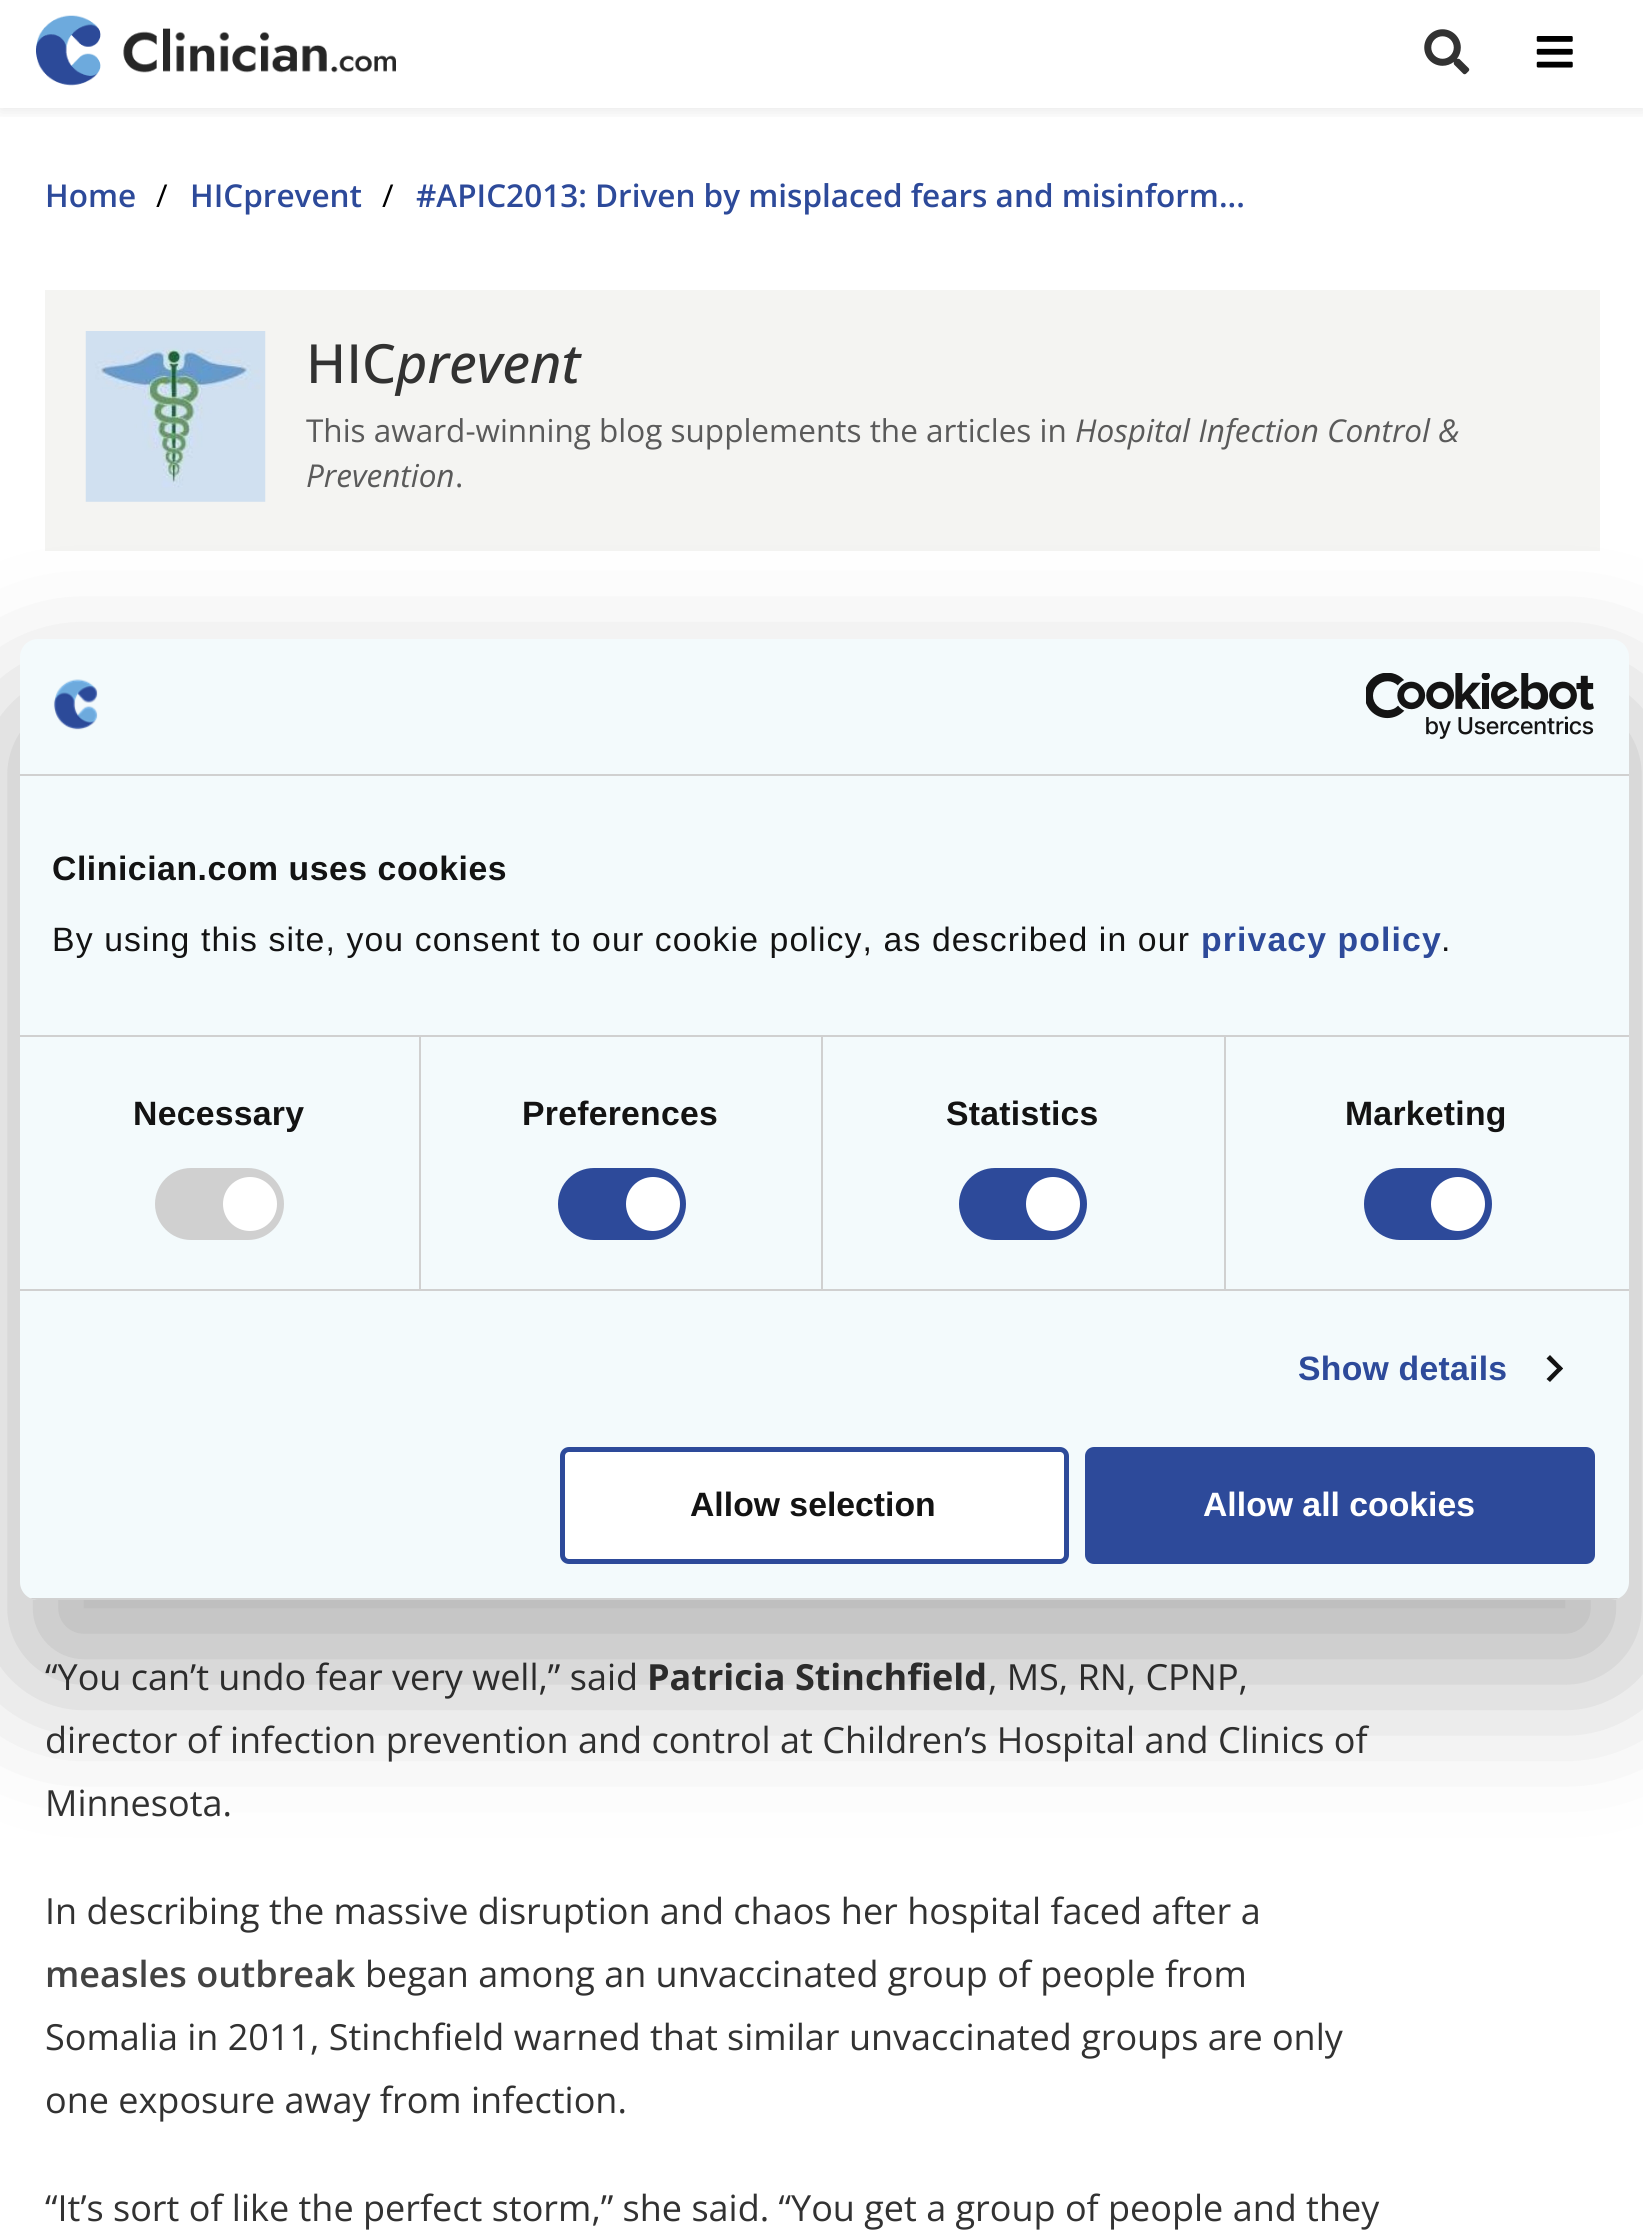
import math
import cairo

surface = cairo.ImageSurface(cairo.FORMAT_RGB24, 1643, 2233)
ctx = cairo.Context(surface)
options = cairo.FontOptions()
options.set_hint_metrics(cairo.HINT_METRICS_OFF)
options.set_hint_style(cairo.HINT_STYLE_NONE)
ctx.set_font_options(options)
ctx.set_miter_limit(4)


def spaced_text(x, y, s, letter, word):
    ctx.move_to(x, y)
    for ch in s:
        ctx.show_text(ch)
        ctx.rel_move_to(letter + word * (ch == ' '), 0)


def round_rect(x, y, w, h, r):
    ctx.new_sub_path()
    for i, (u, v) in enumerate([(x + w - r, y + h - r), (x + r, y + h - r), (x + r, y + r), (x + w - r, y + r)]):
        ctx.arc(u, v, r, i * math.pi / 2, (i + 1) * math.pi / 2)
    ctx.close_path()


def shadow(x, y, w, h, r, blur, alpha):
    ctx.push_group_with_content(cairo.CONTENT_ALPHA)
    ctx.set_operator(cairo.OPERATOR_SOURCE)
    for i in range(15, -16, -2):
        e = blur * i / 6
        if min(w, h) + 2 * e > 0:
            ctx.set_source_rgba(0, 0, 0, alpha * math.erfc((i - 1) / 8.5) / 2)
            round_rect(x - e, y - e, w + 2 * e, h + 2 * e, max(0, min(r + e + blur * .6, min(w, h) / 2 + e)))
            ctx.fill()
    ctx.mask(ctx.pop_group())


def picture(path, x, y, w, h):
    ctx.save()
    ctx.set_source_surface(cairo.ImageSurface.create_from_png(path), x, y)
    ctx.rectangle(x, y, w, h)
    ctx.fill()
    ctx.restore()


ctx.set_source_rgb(1, 1, 1)
ctx.paint()
ctx.save()
ctx.rectangle(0, 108, 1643, 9)
ctx.clip()
ctx.set_source_rgb(0, 0, 0)
shadow(0, 2, 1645, 108, 0, 8, 0.1)
ctx.restore()
picture("img1.png", 36, 15, 360, 71)
picture("img2.png", 1424, 29, 46, 46)
picture("img3.png", 1536, 36, 37, 32)
ctx.select_font_face("Open Sans SemiBold")
ctx.set_font_size(31.5)
ctx.set_source_rgb(0.176, 0.29, 0.604)
ctx.move_to(45, 207)
ctx.show_text("Home")
ctx.select_font_face("Open Sans")
ctx.set_source_rgb(0, 0, 0)
ctx.move_to(156, 207)
ctx.show_text("/")
ctx.select_font_face("Open Sans SemiBold")
ctx.set_source_rgb(0.176, 0.29, 0.604)
ctx.move_to(190, 207)
ctx.show_text("HICprevent")
ctx.select_font_face("Open Sans")
ctx.set_source_rgb(0, 0, 0)
ctx.move_to(382, 207)
ctx.show_text("/")
ctx.select_font_face("Open Sans SemiBold")
ctx.set_source_rgb(0.176, 0.29, 0.604)
ctx.move_to(416, 207)
ctx.show_text("#APIC2013: Driven by misplaced fears and misinform...")
ctx.set_source_rgb(0.957, 0.957, 0.949)
ctx.rectangle(45, 290, 1555, 261)
ctx.fill()
picture("img4.png", 85, 331, 181, 171)
ctx.select_font_face("Open Sans Medium")
ctx.set_font_size(54)
ctx.set_source_rgb(0.196, 0.196, 0.196)
ctx.move_to(306, 383)
ctx.show_text("HIC")
ctx.select_font_face("Open Sans Medium", cairo.FONT_SLANT_ITALIC)
ctx.move_to(396, 383)
ctx.show_text("prevent")
ctx.select_font_face("Open Sans")
ctx.set_font_size(31.5)
ctx.set_source_rgb(0.353, 0.353, 0.353)
ctx.move_to(306, 442)
ctx.show_text("This award-winning blog supplements the articles in")
ctx.select_font_face("Open Sans", cairo.FONT_SLANT_ITALIC)
ctx.move_to(1075, 442)
ctx.show_text("Hospital Infection Control &")
ctx.move_to(306, 487)
ctx.show_text("Prevention")
ctx.select_font_face("Open Sans")
ctx.move_to(455, 487)
ctx.show_text(".")
ctx.set_font_size(36)
ctx.set_source_rgb(0.196, 0.196, 0.196)
ctx.move_to(45, 1690)
ctx.show_text("“You can’t undo fear very well,” said")
ctx.select_font_face("Open Sans", cairo.FONT_SLANT_NORMAL, cairo.FONT_WEIGHT_BOLD)
ctx.move_to(647, 1690)
ctx.show_text("Patricia Stinchfield")
ctx.select_font_face("Open Sans")
ctx.move_to(988, 1690)
ctx.show_text(", MS, RN, CPNP,")
ctx.move_to(45, 1753)
ctx.show_text("director of infection prevention and control at Children’s Hospital and Clinics of")
ctx.move_to(45, 1816)
ctx.show_text("Minnesota.")
ctx.move_to(45, 1924)
ctx.show_text("In describing the massive disruption and chaos her hospital faced after a")
ctx.select_font_face("Open Sans SemiBold")
ctx.set_source_rgb(0.263, 0.263, 0.263)
ctx.move_to(45, 1987)
ctx.show_text("measles outbreak")
ctx.select_font_face("Open Sans")
ctx.set_source_rgb(0.196, 0.196, 0.196)
ctx.move_to(365, 1987)
ctx.show_text("began among an unvaccinated group of people from")
ctx.move_to(45, 2050)
ctx.show_text("Somalia in 2011, Stinchfield warned that similar unvaccinated groups are only")
ctx.move_to(45, 2113)
ctx.show_text("one exposure away from infection.")
ctx.move_to(45, 2221)
ctx.show_text("“It’s sort of like the perfect storm,” she said. “You get a group of people and they")
ctx.set_source_rgb(0, 0, 0)
shadow(20, 711, 1609, 961, 18, 76.5, 0.3)
ctx.set_source_rgb(0.953, 0.98, 0.988)
round_rect(20, 639, 1609, 961, 18)
ctx.fill()
ctx.set_source_rgb(0.816, 0.816, 0.816)
ctx.rectangle(20, 774, 1609, 2)
ctx.fill()
picture("img5.png", 53, 679, 45, 51)
picture("img6.png", 1366, 673, 228, 66)
ctx.rectangle(20, 1035, 1609, 2)
ctx.fill()
ctx.select_font_face("Liberation Sans", cairo.FONT_SLANT_NORMAL, cairo.FONT_WEIGHT_BOLD)
ctx.set_font_size(33.75)
ctx.set_source_rgb(0.078, 0.078, 0.078)
spaced_text(52, 880, "Clinician.com uses cookies", 0.55, 0)
ctx.select_font_face("Liberation Sans")
spaced_text(52, 951, "By using this site, you consent to our cookie policy, as described in our", 1.12, 0)
ctx.select_font_face("Liberation Sans", cairo.FONT_SLANT_NORMAL, cairo.FONT_WEIGHT_BOLD)
ctx.set_source_rgb(0.176, 0.29, 0.604)
spaced_text(1201, 951, "privacy policy", 1.12, 0)
ctx.select_font_face("Liberation Sans")
ctx.set_source_rgb(0.078, 0.078, 0.078)
spaced_text(1441, 951, ".", 1.12, 0)
ctx.set_source_rgb(0.816, 0.816, 0.816)
ctx.rectangle(20, 1289, 1609, 2)
ctx.fill()
ctx.rectangle(419, 1037, 2, 252)
ctx.fill()
ctx.select_font_face("Liberation Sans", cairo.FONT_SLANT_NORMAL, cairo.FONT_WEIGHT_BOLD)
ctx.set_source_rgb(0.078, 0.078, 0.078)
spaced_text(133, 1125, "Necessary", 0.25, 0)
ctx.set_source_rgb(0.816, 0.816, 0.816)
round_rect(155, 1168, 129, 72, 36)
ctx.fill()
ctx.set_source_rgb(1, 1, 1)
ctx.arc(250, 1204, 27, 0, 2 * math.pi)
ctx.fill()
ctx.set_source_rgb(0.816, 0.816, 0.816)
ctx.rectangle(821, 1037, 2, 252)
ctx.fill()
ctx.set_source_rgb(0.078, 0.078, 0.078)
spaced_text(522, 1125, "Preferences", 0.25, 0)
ctx.set_source_rgb(0.176, 0.29, 0.604)
round_rect(558, 1168, 128, 72, 36)
ctx.fill()
ctx.set_source_rgb(1, 1, 1)
ctx.arc(653, 1204, 27, 0, 2 * math.pi)
ctx.fill()
ctx.set_source_rgb(0.816, 0.816, 0.816)
ctx.rectangle(1224, 1037, 2, 252)
ctx.fill()
ctx.set_source_rgb(0.078, 0.078, 0.078)
spaced_text(946, 1125, "Statistics", 0.25, 0)
ctx.set_source_rgb(0.176, 0.29, 0.604)
round_rect(959, 1168, 128, 72, 36)
ctx.fill()
ctx.set_source_rgb(1, 1, 1)
ctx.arc(1053, 1204, 27, 0, 2 * math.pi)
ctx.fill()
ctx.set_source_rgb(0.078, 0.078, 0.078)
spaced_text(1345, 1125, "Marketing", 0.25, 0)
ctx.set_source_rgb(0.176, 0.29, 0.604)
round_rect(1364, 1168, 128, 72, 36)
ctx.fill()
ctx.set_source_rgb(1, 1, 1)
ctx.arc(1458, 1204, 27, 0, 2 * math.pi)
ctx.fill()
ctx.set_source_rgb(0.176, 0.29, 0.604)
spaced_text(1298, 1380, "Show details", 0.25, 0)
ctx.set_source_rgb(0.078, 0.078, 0.078)
ctx.new_path()
ctx.move_to(1550, 1355)
ctx.line_to(1563, 1368.5)
ctx.line_to(1560, 1371.5)
ctx.line_to(1546.5, 1358.5)
ctx.close_path()
ctx.fill()
ctx.new_path()
ctx.move_to(1560, 1365.5)
ctx.line_to(1563, 1368.5)
ctx.line_to(1550, 1382)
ctx.line_to(1546.5, 1379)
ctx.close_path()
ctx.fill()
ctx.save()
round_rect(20, 639, 1609, 961, 18)
ctx.clip()
ctx.set_source_rgb(0.816, 0.816, 0.816)
ctx.rectangle(30, 1598, 1589, 2)
ctx.fill()
ctx.restore()
ctx.set_source_rgb(1, 1, 1)
round_rect(562.5, 1449.5, 504, 112, 6.5)
ctx.fill_preserve()
ctx.set_source_rgb(0.176, 0.29, 0.604)
ctx.set_line_width(5)
ctx.stroke()
ctx.set_source_rgb(0.078, 0.078, 0.078)
ctx.move_to(690, 1516)
ctx.show_text("Allow selection")
ctx.set_source_rgb(0.176, 0.29, 0.604)
round_rect(1087.5, 1449.5, 505, 112, 6.5)
ctx.fill_preserve()
ctx.stroke()
ctx.set_source_rgb(1, 1, 1)
ctx.move_to(1203, 1516)
ctx.show_text("Allow all cookies")
surface.write_to_png("page.png")
